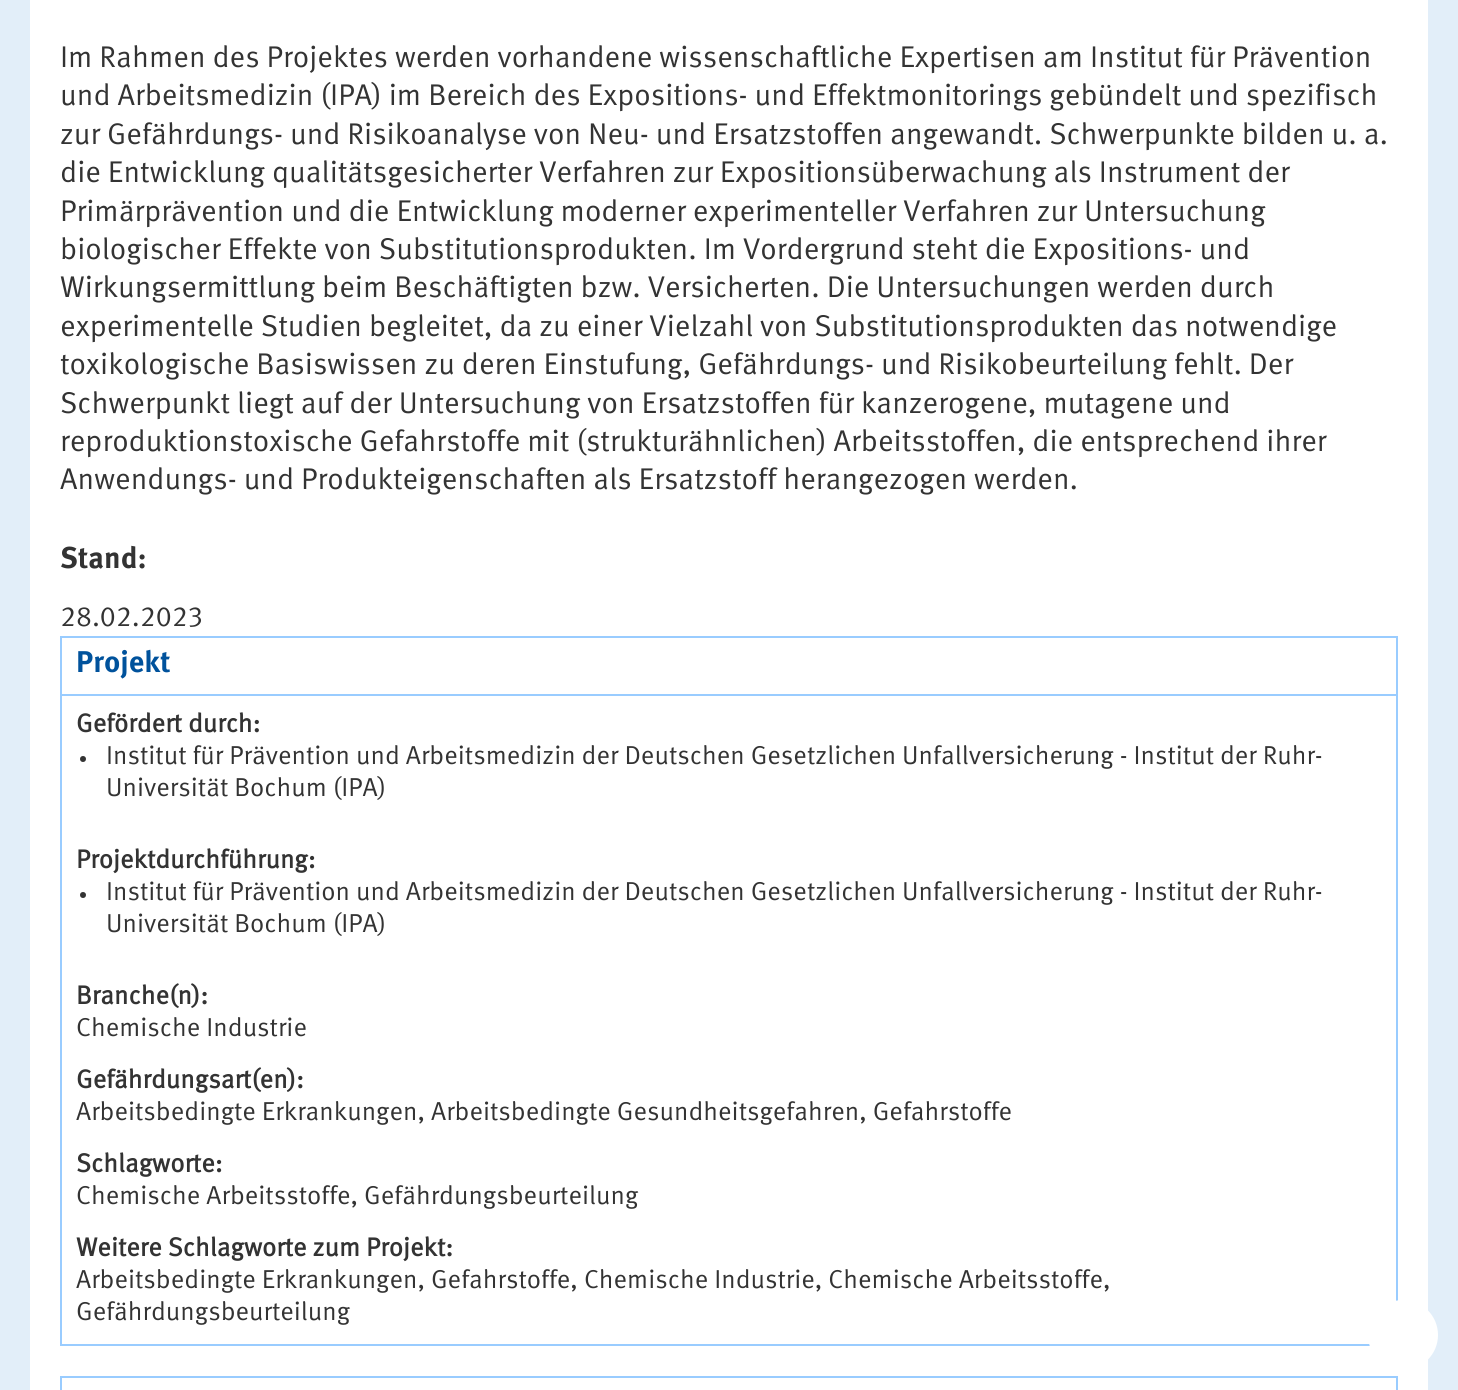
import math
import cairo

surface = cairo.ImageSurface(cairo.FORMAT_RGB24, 1458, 1390)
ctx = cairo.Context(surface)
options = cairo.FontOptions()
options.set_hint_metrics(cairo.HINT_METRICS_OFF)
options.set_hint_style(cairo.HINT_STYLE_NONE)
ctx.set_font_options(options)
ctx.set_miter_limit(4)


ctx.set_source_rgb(0.886, 0.933, 0.973)
ctx.paint()
ctx.set_source_rgb(1, 1, 1)
ctx.rectangle(30, 0, 1398, 1390)
ctx.fill()
ctx.select_font_face("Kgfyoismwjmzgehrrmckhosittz")
ctx.set_font_size(30)
ctx.set_source_rgb(0.2, 0.2, 0.2)
ctx.move_to(60, 67)
ctx.show_text("Im Rahmen des Projektes werden vorhandene wissenschaftliche Expertisen am Institut für Prävention")
ctx.move_to(60, 105)
ctx.show_text("und Arbeitsmedizin (IPA) im Bereich des Expositions- und Effektmonitorings gebündelt und spezifisch")
ctx.move_to(60, 144)
ctx.show_text("zur Gefährdungs- und Risikoanalyse von Neu- und Ersatzstoffen angewandt. Schwerpunkte bilden u. a.")
ctx.move_to(60, 182)
ctx.show_text("die Entwicklung qualitätsgesicherter Verfahren zur Expositionsüberwachung als Instrument der")
ctx.move_to(60, 221)
ctx.show_text("Primärprävention und die Entwicklung moderner experimenteller Verfahren zur Untersuchung")
ctx.move_to(60, 259)
ctx.show_text("biologischer Effekte von Substitutionsprodukten. Im Vordergrund steht die Expositions- und")
ctx.move_to(60, 297)
ctx.show_text("Wirkungsermittlung beim Beschäftigten bzw. Versicherten. Die Untersuchungen werden durch")
ctx.move_to(60, 336)
ctx.show_text("experimentelle Studien begleitet, da zu einer Vielzahl von Substitutionsprodukten das notwendige")
ctx.move_to(60, 374)
ctx.show_text("toxikologische Basiswissen zu deren Einstufung, Gefährdungs- und Risikobeurteilung fehlt. Der")
ctx.move_to(60, 413)
ctx.show_text("Schwerpunkt liegt auf der Untersuchung von Ersatzstoffen für kanzerogene, mutagene und")
ctx.move_to(60, 451)
ctx.show_text("reproduktionstoxische Gefahrstoffe mit (strukturähnlichen) Arbeitsstoffen, die entsprechend ihrer")
ctx.move_to(60, 489)
ctx.show_text("Anwendungs- und Produkteigenschaften als Ersatzstoff herangezogen werden.")
ctx.select_font_face("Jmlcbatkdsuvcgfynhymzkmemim", cairo.FONT_SLANT_NORMAL, cairo.FONT_WEIGHT_BOLD)
ctx.move_to(60, 568)
ctx.show_text("Stand:")
ctx.select_font_face("Kgfyoismwjmzgehrrmckhosittz")
ctx.set_font_size(28)
ctx.move_to(60, 626)
ctx.show_text("28.02.2023")
ctx.rectangle(61, 637, 1336, 708)
ctx.set_source_rgb(0.6, 0.8, 1)
ctx.stroke()
ctx.rectangle(62, 694, 1334, 2)
ctx.fill()
ctx.select_font_face("Jmlcbatkdsuvcgfynhymzkmemim", cairo.FONT_SLANT_NORMAL, cairo.FONT_WEIGHT_BOLD)
ctx.set_font_size(30)
ctx.set_source_rgb(0, 0.322, 0.612)
ctx.move_to(76, 672)
ctx.show_text("Projekt")
ctx.select_font_face("Kgfyoismwjmzgehrrmckhosittz", cairo.FONT_SLANT_NORMAL, cairo.FONT_WEIGHT_BOLD)
ctx.set_font_size(26)
ctx.set_source_rgb(0.2, 0.2, 0.2)
ctx.move_to(76, 732)
ctx.show_text("Gefördert durch:")
ctx.new_path()
ctx.arc(83, 759, 3, 0, 2 * math.pi)
ctx.fill()
ctx.select_font_face("Kgfyoismwjmzgehrrmckhosittz")
ctx.move_to(106, 764)
ctx.show_text("Institut für Prävention und Arbeitsmedizin der Deutschen Gesetzlichen Unfallversicherung - Institut der Ruhr-")
ctx.move_to(106, 796)
ctx.show_text("Universität Bochum (IPA)")
ctx.select_font_face("Kgfyoismwjmzgehrrmckhosittz", cairo.FONT_SLANT_NORMAL, cairo.FONT_WEIGHT_BOLD)
ctx.move_to(76, 868)
ctx.show_text("Projektdurchführung:")
ctx.new_path()
ctx.arc(83, 895, 3, 0, 2 * math.pi)
ctx.fill()
ctx.select_font_face("Kgfyoismwjmzgehrrmckhosittz")
ctx.move_to(106, 900)
ctx.show_text("Institut für Prävention und Arbeitsmedizin der Deutschen Gesetzlichen Unfallversicherung - Institut der Ruhr-")
ctx.move_to(106, 932)
ctx.show_text("Universität Bochum (IPA)")
ctx.select_font_face("Kgfyoismwjmzgehrrmckhosittz", cairo.FONT_SLANT_NORMAL, cairo.FONT_WEIGHT_BOLD)
ctx.move_to(76, 1004)
ctx.show_text("Branche(n):")
ctx.select_font_face("Kgfyoismwjmzgehrrmckhosittz")
ctx.move_to(76, 1036)
ctx.show_text("Chemische Industrie")
ctx.select_font_face("Kgfyoismwjmzgehrrmckhosittz", cairo.FONT_SLANT_NORMAL, cairo.FONT_WEIGHT_BOLD)
ctx.move_to(76, 1088)
ctx.show_text("Gefährdungsart(en):")
ctx.select_font_face("Kgfyoismwjmzgehrrmckhosittz")
ctx.move_to(76, 1120)
ctx.show_text("Arbeitsbedingte Erkrankungen, Arbeitsbedingte Gesundheitsgefahren, Gefahrstoffe")
ctx.select_font_face("Kgfyoismwjmzgehrrmckhosittz", cairo.FONT_SLANT_NORMAL, cairo.FONT_WEIGHT_BOLD)
ctx.move_to(76, 1172)
ctx.show_text("Schlagworte:")
ctx.select_font_face("Kgfyoismwjmzgehrrmckhosittz")
ctx.move_to(76, 1204)
ctx.show_text("Chemische Arbeitsstoffe, Gefährdungsbeurteilung")
ctx.select_font_face("Kgfyoismwjmzgehrrmckhosittz", cairo.FONT_SLANT_NORMAL, cairo.FONT_WEIGHT_BOLD)
ctx.move_to(76, 1256)
ctx.show_text("Weitere Schlagworte zum Projekt:")
ctx.select_font_face("Kgfyoismwjmzgehrrmckhosittz")
ctx.move_to(76, 1288)
ctx.show_text("Arbeitsbedingte Erkrankungen, Gefahrstoffe, Chemische Industrie, Chemische Arbeitsstoffe,")
ctx.move_to(76, 1320)
ctx.show_text("Gefährdungsbeurteilung")
ctx.rectangle(61, 1377, 1336, 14)
ctx.set_source_rgb(0.6, 0.8, 1)
ctx.stroke()
ctx.set_source_rgb(1, 1, 1)
ctx.arc(1403, 1335, 35, 0, 2 * math.pi)
ctx.fill()
surface.write_to_png("page.png")
